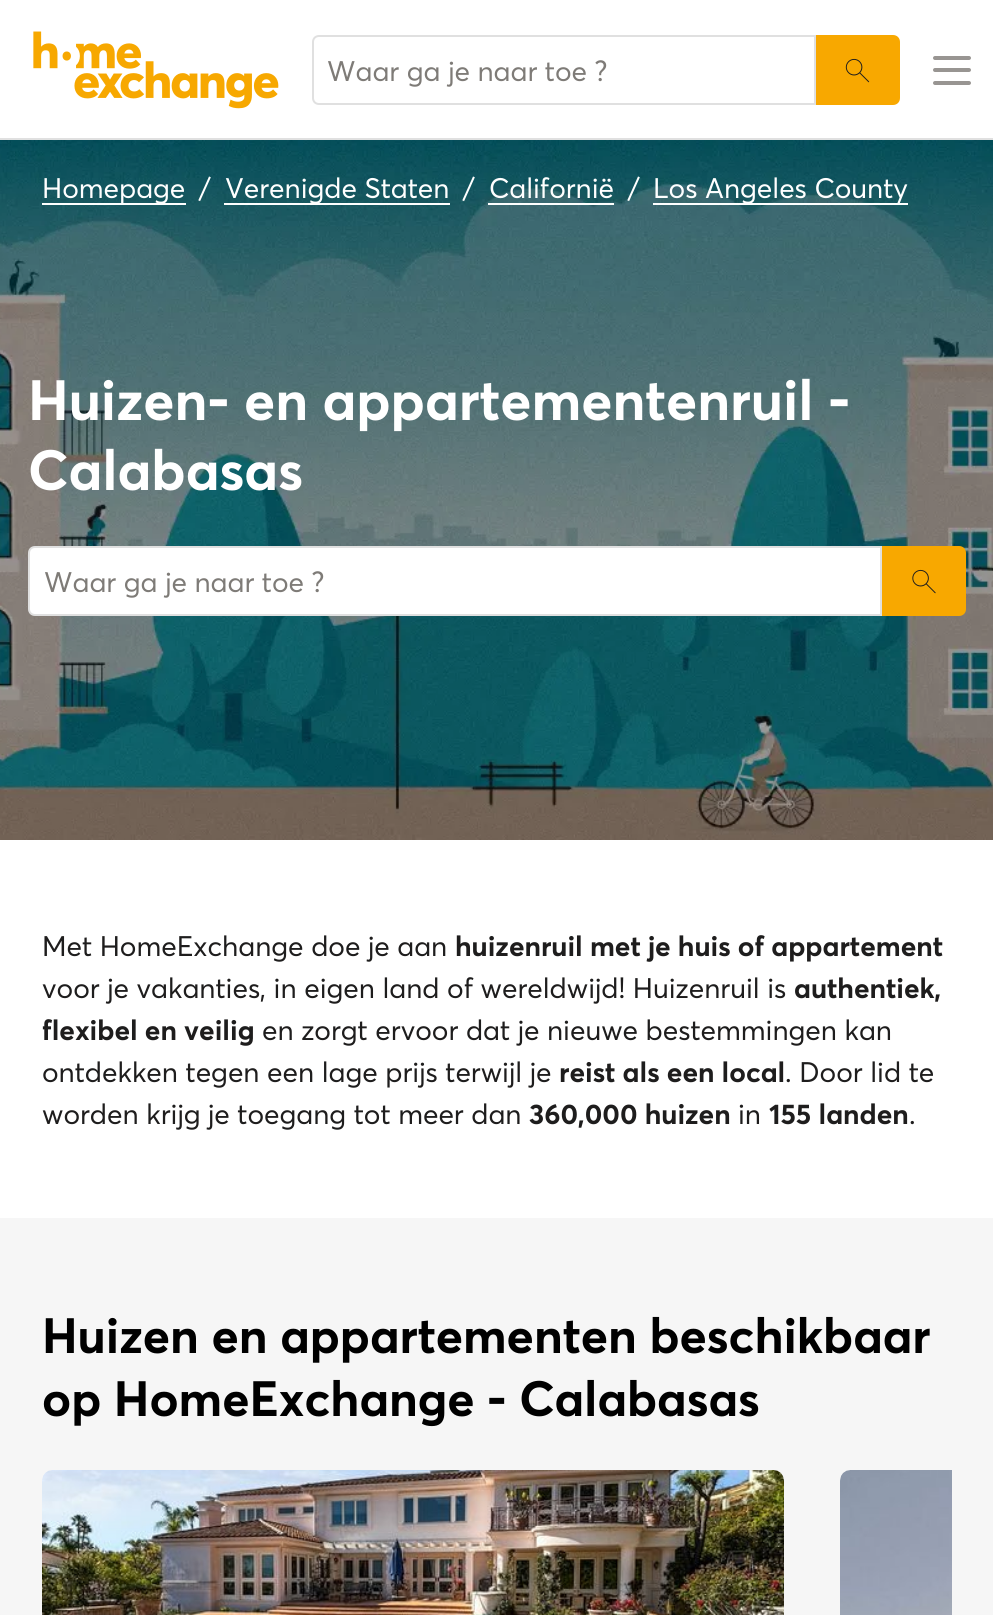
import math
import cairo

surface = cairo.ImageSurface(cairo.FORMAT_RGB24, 993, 1615)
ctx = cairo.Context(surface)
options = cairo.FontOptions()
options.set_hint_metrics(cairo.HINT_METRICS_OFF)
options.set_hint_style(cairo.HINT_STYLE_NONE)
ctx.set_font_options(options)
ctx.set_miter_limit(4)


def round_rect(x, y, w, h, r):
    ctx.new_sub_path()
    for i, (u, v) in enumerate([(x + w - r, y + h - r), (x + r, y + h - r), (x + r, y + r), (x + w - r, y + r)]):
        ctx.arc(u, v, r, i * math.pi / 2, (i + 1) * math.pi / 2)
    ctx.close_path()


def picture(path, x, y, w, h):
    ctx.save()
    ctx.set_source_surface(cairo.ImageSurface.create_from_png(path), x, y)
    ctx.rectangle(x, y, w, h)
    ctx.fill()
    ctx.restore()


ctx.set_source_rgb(1, 1, 1)
ctx.paint()
ctx.set_source_rgb(0.878, 0.878, 0.878)
ctx.rectangle(0, 138, 993, 2)
ctx.fill()
picture("img1.png", 33, 31, 246, 78)
ctx.new_path()
ctx.move_to(319, 36)
ctx.line_to(815, 36)
ctx.line_to(815, 104)
ctx.line_to(319, 104)
ctx.curve_to(315.5, 104, 313, 101.5, 313, 98)
ctx.line_to(313, 42)
ctx.curve_to(313, 38.5, 315.5, 36, 319, 36)
ctx.close_path()
ctx.stroke()
ctx.select_font_face("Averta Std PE")
ctx.set_font_size(28)
ctx.set_source_rgb(0.494, 0.482, 0.467)
ctx.move_to(327, 81)
ctx.show_text("Waar ga je naar toe ?")
ctx.set_source_rgb(0.969, 0.659, 0)
ctx.new_path()
ctx.move_to(816, 35)
ctx.line_to(893, 35)
ctx.curve_to(897, 35, 900, 38, 900, 42)
ctx.line_to(900, 98)
ctx.curve_to(900, 102, 897, 105, 893, 105)
ctx.line_to(816, 105)
ctx.close_path()
ctx.fill()
picture("img2.png", 845, 58, 25, 25)
ctx.set_source_rgb(0.596, 0.584, 0.573)
round_rect(933, 56, 38, 4, 2)
ctx.fill()
round_rect(933, 68, 38, 4, 2)
ctx.fill()
round_rect(933, 81, 38, 4, 2)
ctx.fill()
picture("img3.png", 0, 140, 993, 700)
ctx.set_source_rgb(1, 1, 1)
ctx.rectangle(42, 203, 144, 2)
ctx.fill()
ctx.move_to(42, 198)
ctx.show_text("Homepage")
ctx.move_to(199, 198)
ctx.show_text("/")
ctx.rectangle(224, 203, 226, 2)
ctx.fill()
ctx.move_to(225, 198)
ctx.show_text("Verenigde Staten")
ctx.move_to(463, 198)
ctx.show_text("/")
ctx.move_to(489, 198)
ctx.show_text("Californië")
ctx.rectangle(488, 203, 126, 2)
ctx.fill()
ctx.move_to(628, 198)
ctx.show_text("/")
ctx.rectangle(653, 203, 255, 2)
ctx.fill()
ctx.move_to(653, 198)
ctx.show_text("Los Angeles County")
ctx.select_font_face("Averta Std PE", cairo.FONT_SLANT_NORMAL, cairo.FONT_WEIGHT_BOLD)
ctx.set_font_size(56)
ctx.move_to(28, 420)
ctx.show_text("Huizen- en appartementenruil -")
ctx.move_to(28, 490)
ctx.show_text("Calabasas")
ctx.new_path()
ctx.move_to(35, 547)
ctx.line_to(881, 547)
ctx.line_to(881, 615)
ctx.line_to(35, 615)
ctx.curve_to(31.5, 615, 29, 612.5, 29, 609)
ctx.line_to(29, 553)
ctx.curve_to(29, 549.5, 31.5, 547, 35, 547)
ctx.close_path()
ctx.fill_preserve()
ctx.set_source_rgb(0.878, 0.878, 0.878)
ctx.stroke()
ctx.select_font_face("Averta Std PE")
ctx.set_font_size(28)
ctx.set_source_rgb(0.494, 0.482, 0.467)
ctx.move_to(44, 592)
ctx.show_text("Waar ga je naar toe ?")
ctx.set_source_rgb(0.969, 0.659, 0)
ctx.new_path()
ctx.move_to(882, 546)
ctx.line_to(959, 546)
ctx.curve_to(963, 546, 966, 549, 966, 553)
ctx.line_to(966, 609)
ctx.curve_to(966, 613, 963, 616, 959, 616)
ctx.line_to(882, 616)
ctx.close_path()
ctx.fill()
picture("img4.png", 912, 569, 24, 25)
ctx.set_source_rgb(0.118, 0.114, 0.114)
ctx.move_to(42, 956)
ctx.show_text("Met HomeExchange doe je aan")
ctx.select_font_face("Averta Std PE", cairo.FONT_SLANT_NORMAL, cairo.FONT_WEIGHT_BOLD)
ctx.move_to(455, 956)
ctx.show_text("huizenruil met je huis of appartement")
ctx.select_font_face("Averta Std PE")
ctx.move_to(42, 998)
ctx.show_text("voor je vakanties, in eigen land of wereldwijd! Huizenruil is")
ctx.select_font_face("Averta Std PE", cairo.FONT_SLANT_NORMAL, cairo.FONT_WEIGHT_BOLD)
ctx.move_to(794, 998)
ctx.show_text("authentiek,")
ctx.move_to(42, 1040)
ctx.show_text("flexibel en veilig")
ctx.select_font_face("Averta Std PE")
ctx.move_to(262, 1040)
ctx.show_text("en zorgt ervoor dat je nieuwe bestemmingen kan")
ctx.move_to(42, 1082)
ctx.show_text("ontdekken tegen een lage prijs terwijl je")
ctx.select_font_face("Averta Std PE", cairo.FONT_SLANT_NORMAL, cairo.FONT_WEIGHT_BOLD)
ctx.move_to(559, 1082)
ctx.show_text("reist als een local")
ctx.select_font_face("Averta Std PE")
ctx.move_to(785, 1082)
ctx.show_text(". Door lid te")
ctx.move_to(42, 1124)
ctx.show_text("worden krijg je toegang tot meer dan")
ctx.select_font_face("Averta Std PE", cairo.FONT_SLANT_NORMAL, cairo.FONT_WEIGHT_BOLD)
ctx.move_to(529, 1124)
ctx.show_text("360,000 huizen")
ctx.select_font_face("Averta Std PE")
ctx.move_to(738, 1124)
ctx.show_text("in")
ctx.select_font_face("Averta Std PE", cairo.FONT_SLANT_NORMAL, cairo.FONT_WEIGHT_BOLD)
ctx.move_to(769, 1124)
ctx.show_text("155 landen")
ctx.select_font_face("Averta Std PE")
ctx.move_to(909, 1124)
ctx.show_text(".")
ctx.set_source_rgb(0.961, 0.961, 0.961)
ctx.rectangle(0, 1218, 993, 397)
ctx.fill()
ctx.select_font_face("Averta Std PE", cairo.FONT_SLANT_NORMAL, cairo.FONT_WEIGHT_BOLD)
ctx.set_font_size(49)
ctx.set_source_rgb(0, 0, 0)
ctx.move_to(42, 1353)
ctx.show_text("Huizen en appartementen beschikbaar")
ctx.move_to(42, 1416)
ctx.show_text("op HomeExchange - Calabasas")
picture("img5.png", 42, 1470, 742, 145)
picture("img6.png", 840, 1470, 112, 145)
surface.write_to_png("page.png")
